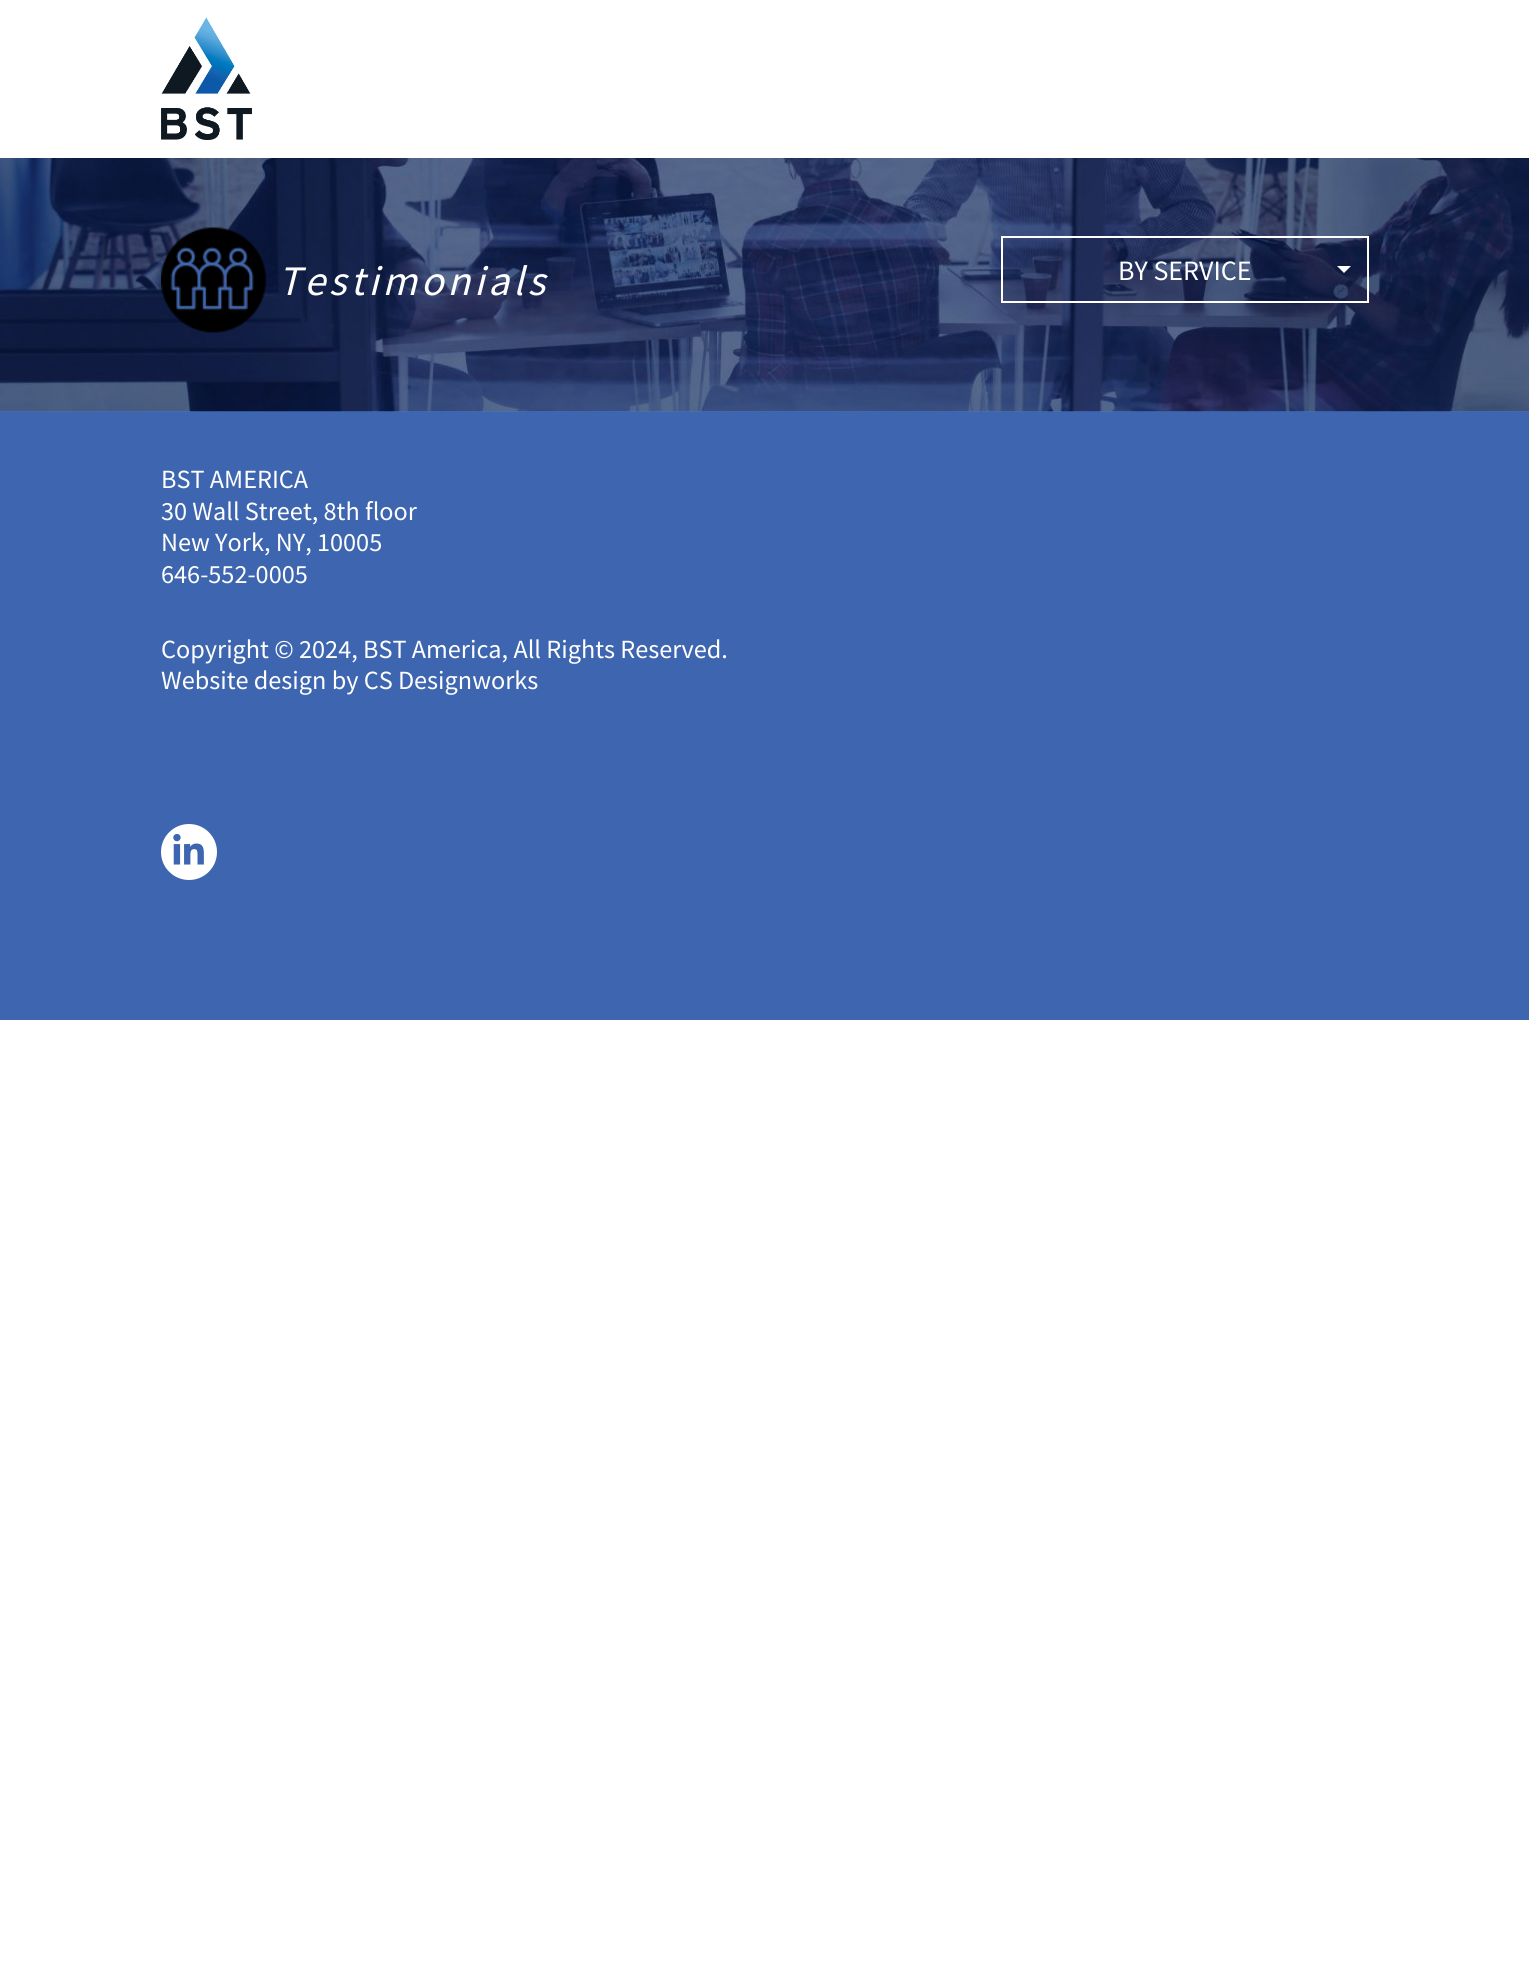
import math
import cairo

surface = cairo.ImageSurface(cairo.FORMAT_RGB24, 1529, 1966)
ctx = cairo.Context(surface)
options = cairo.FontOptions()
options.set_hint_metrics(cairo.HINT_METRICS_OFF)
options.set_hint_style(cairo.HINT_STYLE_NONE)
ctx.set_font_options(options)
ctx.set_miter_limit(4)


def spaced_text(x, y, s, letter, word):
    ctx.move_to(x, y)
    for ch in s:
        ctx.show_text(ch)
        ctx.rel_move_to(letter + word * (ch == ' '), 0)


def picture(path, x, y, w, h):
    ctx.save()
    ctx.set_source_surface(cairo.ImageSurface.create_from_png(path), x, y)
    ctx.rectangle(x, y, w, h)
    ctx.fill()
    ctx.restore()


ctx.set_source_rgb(1, 1, 1)
ctx.paint()
picture("img1.png", 161, 17, 91, 123)
ctx.set_source_rgb(0.243, 0.4, 0.69)
ctx.rectangle(0, 411, 1529, 609)
ctx.fill()
picture("img2.png", 0, 158, 1529, 254)
picture("img3.png", 161, 227, 105, 106)
ctx.select_font_face("Source Sans Pro", cairo.FONT_SLANT_ITALIC)
ctx.set_font_size(42)
ctx.set_source_rgb(1, 1, 1)
spaced_text(278, 295, "Testimonials", 3.75, 0)
ctx.rectangle(1002, 237, 366, 65)
ctx.stroke()
ctx.select_font_face("Source Sans Pro")
ctx.set_font_size(28)
ctx.move_to(1118, 280)
ctx.show_text("BY SERVICE")
ctx.new_path()
ctx.move_to(1337, 266)
ctx.line_to(1351, 266)
ctx.line_to(1344, 273)
ctx.close_path()
ctx.fill()
ctx.set_font_size(26.25)
ctx.move_to(161, 488)
ctx.show_text("BST AMERICA")
ctx.move_to(161, 520)
ctx.show_text("30 Wall Street, 8th floor")
ctx.move_to(161, 551)
ctx.show_text("New York, NY, 10005")
ctx.move_to(161, 583)
ctx.show_text("646-552-0005")
ctx.move_to(161, 658)
ctx.show_text("Copyright © 2024, BST America, All Rights Reserved.")
ctx.move_to(161, 689)
ctx.show_text("Website design by CS Designworks")
ctx.new_path()
ctx.arc(189, 852, 28, 0, 2 * math.pi)
ctx.fill()
picture("img4.png", 173, 833, 31, 32)
surface.write_to_png("page.png")
